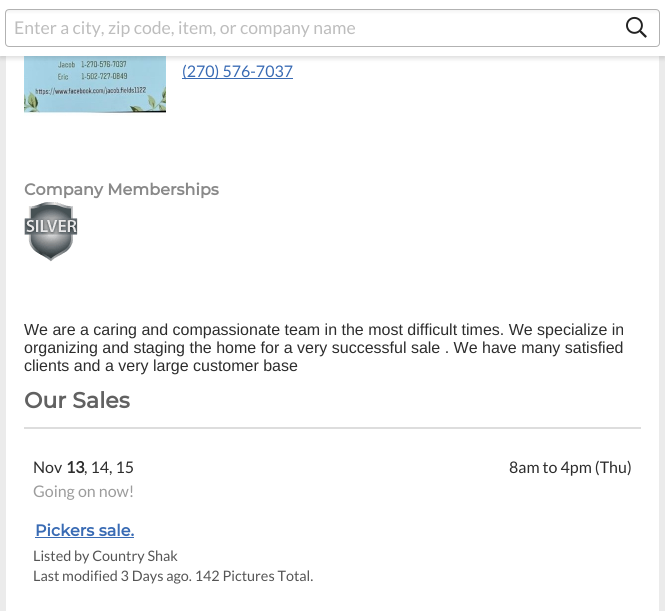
import math
import cairo

surface = cairo.ImageSurface(cairo.FORMAT_RGB24, 665, 611)
ctx = cairo.Context(surface)
options = cairo.FontOptions()
options.set_hint_metrics(cairo.HINT_METRICS_OFF)
options.set_hint_style(cairo.HINT_STYLE_NONE)
ctx.set_font_options(options)
ctx.set_miter_limit(4)


def round_rect(x, y, w, h, r):
    ctx.new_sub_path()
    for i, (u, v) in enumerate([(x + w - r, y + h - r), (x + r, y + h - r), (x + r, y + r), (x + w - r, y + r)]):
        ctx.arc(u, v, r, i * math.pi / 2, (i + 1) * math.pi / 2)
    ctx.close_path()


def shadow(x, y, w, h, r, blur, alpha):
    ctx.push_group_with_content(cairo.CONTENT_ALPHA)
    ctx.set_operator(cairo.OPERATOR_SOURCE)
    for i in range(15, -16, -2):
        e = blur * i / 6
        if min(w, h) + 2 * e > 0:
            ctx.set_source_rgba(0, 0, 0, alpha * math.erfc((i - 1) / 8.5) / 2)
            round_rect(x - e, y - e, w + 2 * e, h + 2 * e, max(0, min(r + e + blur * .6, min(w, h) / 2 + e)))
            ctx.fill()
    ctx.mask(ctx.pop_group())


def picture(path, x, y, w, h):
    ctx.save()
    ctx.set_source_surface(cairo.ImageSurface.create_from_png(path), x, y)
    ctx.rectangle(x, y, w, h)
    ctx.fill()
    ctx.restore()


ctx.set_source_rgb(0.918, 0.918, 0.918)
ctx.paint()
ctx.set_source_rgb(1, 1, 1)
ctx.rectangle(6, 56, 653, 555)
ctx.fill()
picture("img2.png", 24, 56, 142, 60)
ctx.set_source_rgb(0, 0, 0)
shadow(0, 2, 665, 56, 0, 2.5, 0.15)
ctx.set_source_rgb(1, 1, 1)
ctx.rectangle(0, 0, 665, 56)
ctx.fill()
ctx.save()
round_rect(5, 9, 655, 38, 4)
ctx.clip()
gradient = cairo.LinearGradient(333, 10, 333, 46)
gradient.add_color_stop_rgba(0, 0.957, 0.957, 0.957, 1)
gradient.add_color_stop_rgba(0.12, 1, 1, 1, 1)
ctx.set_source(gradient)
ctx.rectangle(5, 10, 655, 36)
ctx.fill()
ctx.restore()
round_rect(5.5, 9.5, 654, 37, 3.5)
ctx.set_source_rgb(0.698, 0.698, 0.698)
ctx.set_line_width(1)
ctx.stroke()
ctx.select_font_face("Lato")
ctx.set_font_size(17.6)
ctx.set_source_rgb(0.741, 0.741, 0.741)
ctx.move_to(14, 34)
ctx.show_text("Enter a city, zip code, item, or company name")
picture("img1.png", 626, 16, 21, 22)
ctx.set_source_rgb(0.224, 0.42, 0.706)
ctx.rectangle(182, 78, 111, 1)
ctx.fill()
ctx.set_font_size(16)
ctx.move_to(182, 77)
ctx.show_text("(270) 576-7037")
ctx.select_font_face("Montserrat", cairo.FONT_SLANT_NORMAL, cairo.FONT_WEIGHT_BOLD)
ctx.set_source_rgb(0.537, 0.537, 0.537)
ctx.move_to(24, 195)
ctx.show_text("Company Memberships")
picture("img3.png", 24, 202, 54, 60)
ctx.select_font_face("Liberation Sans")
ctx.set_source_rgb(0.176, 0.176, 0.176)
ctx.move_to(24, 335)
ctx.show_text("We are a caring and compassionate team in the most difficult times. We specialize in")
ctx.move_to(24, 353)
ctx.show_text("organizing and staging the home for a very successful sale . We have many satisfied")
ctx.move_to(24, 371)
ctx.show_text("clients and a very large customer base")
ctx.select_font_face("Montserrat", cairo.FONT_SLANT_NORMAL, cairo.FONT_WEIGHT_BOLD)
ctx.set_font_size(22)
ctx.set_source_rgb(0.38, 0.38, 0.38)
ctx.move_to(24, 408)
ctx.show_text("Our Sales")
ctx.set_source_rgb(0.867, 0.867, 0.867)
ctx.rectangle(24, 427, 617, 2)
ctx.fill()
ctx.select_font_face("Lato")
ctx.set_font_size(16)
ctx.set_source_rgb(0.176, 0.176, 0.176)
ctx.move_to(33, 473)
ctx.show_text("Nov")
ctx.select_font_face("Lato", cairo.FONT_SLANT_NORMAL, cairo.FONT_WEIGHT_BOLD)
ctx.move_to(66, 473)
ctx.show_text("13")
ctx.select_font_face("Lato")
ctx.move_to(84, 473)
ctx.show_text(", 14, 15")
ctx.move_to(509, 473)
ctx.show_text("8am to 4pm (Thu)")
ctx.set_source_rgb(0.612, 0.612, 0.612)
ctx.move_to(33, 497)
ctx.show_text("Going on now!")
ctx.select_font_face("Montserrat", cairo.FONT_SLANT_NORMAL, cairo.FONT_WEIGHT_BOLD)
ctx.set_source_rgb(0.224, 0.42, 0.706)
ctx.move_to(35, 536)
ctx.show_text("Pickers sale.")
ctx.rectangle(35, 537, 99, 1)
ctx.fill()
ctx.select_font_face("Lato")
ctx.set_font_size(14.4)
ctx.set_source_rgb(0.333, 0.333, 0.333)
ctx.move_to(33, 561)
ctx.show_text("Listed by Country Shak")
ctx.move_to(33, 581)
ctx.show_text("Last modified 3 Days ago. 142 Pictures Total.")
surface.write_to_png("page.png")
